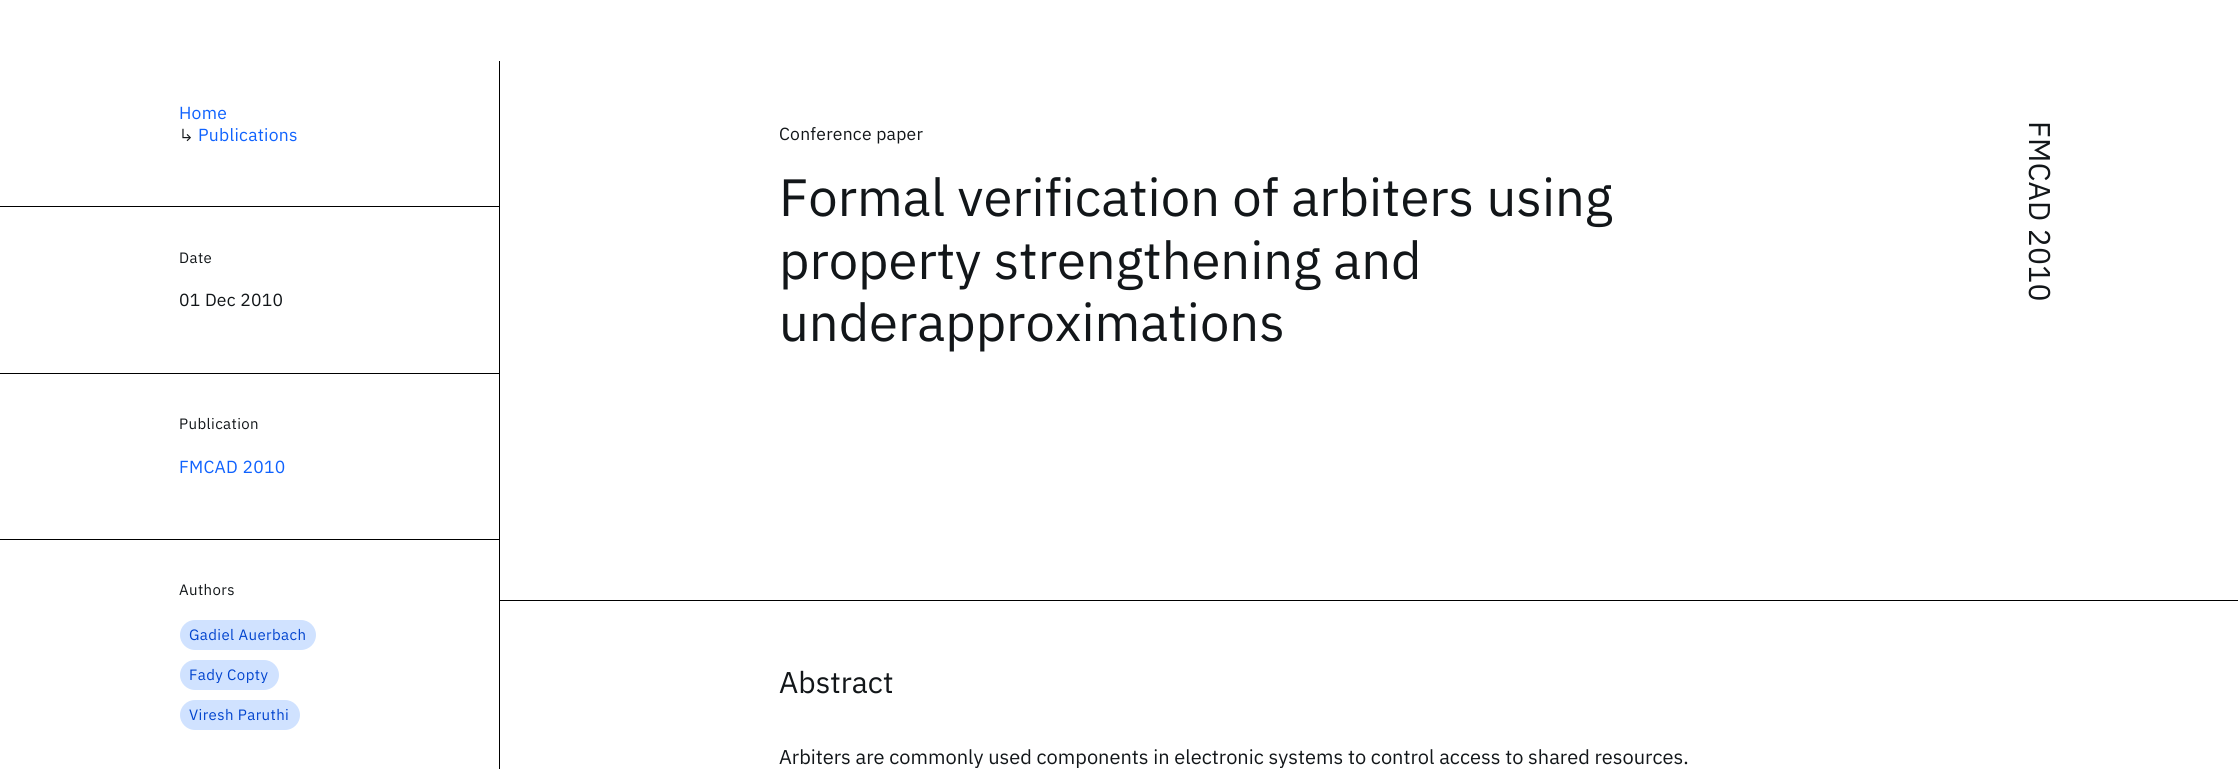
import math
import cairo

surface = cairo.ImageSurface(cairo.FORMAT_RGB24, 2238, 769)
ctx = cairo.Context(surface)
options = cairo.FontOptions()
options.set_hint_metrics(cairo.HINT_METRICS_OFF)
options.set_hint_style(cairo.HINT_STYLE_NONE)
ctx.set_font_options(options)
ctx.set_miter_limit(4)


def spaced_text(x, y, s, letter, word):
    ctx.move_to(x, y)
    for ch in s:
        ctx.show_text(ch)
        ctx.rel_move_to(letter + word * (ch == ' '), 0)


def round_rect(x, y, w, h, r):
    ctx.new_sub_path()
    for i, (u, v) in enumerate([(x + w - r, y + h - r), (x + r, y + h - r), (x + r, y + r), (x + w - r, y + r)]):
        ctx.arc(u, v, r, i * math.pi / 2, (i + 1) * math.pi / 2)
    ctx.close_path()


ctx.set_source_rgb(1, 1, 1)
ctx.paint()
ctx.select_font_face("IBM Plex Sans")
ctx.set_font_size(17.5)
ctx.set_source_rgb(0.059, 0.384, 0.996)
spaced_text(179, 119, "Home", 0.25, 0)
ctx.set_source_rgb(0.071, 0.086, 0.098)
spaced_text(179, 141, "↳", 0.25, 0)
ctx.set_source_rgb(0.059, 0.384, 0.996)
spaced_text(198, 141, "Publications", 0.25, 0)
ctx.set_source_rgb(0, 0, 0)
ctx.rectangle(499, 61, 1, 708)
ctx.fill()
ctx.rectangle(0, 206, 500, 1)
ctx.fill()
ctx.set_font_size(15)
ctx.set_source_rgb(0.071, 0.086, 0.098)
spaced_text(179, 263, "Date", 0.4, 0)
ctx.set_font_size(17.5)
spaced_text(179, 306, "01 Dec 2010", 0.25, 0)
ctx.set_source_rgb(0, 0, 0)
ctx.rectangle(0, 373, 500, 1)
ctx.fill()
ctx.set_font_size(15)
ctx.set_source_rgb(0.071, 0.086, 0.098)
spaced_text(179, 429, "Publication", 0.4, 0)
ctx.set_font_size(17.5)
ctx.set_source_rgb(0.059, 0.384, 0.996)
spaced_text(179, 473, "FMCAD 2010", 0.25, 0)
ctx.set_source_rgb(0, 0, 0)
ctx.rectangle(0, 539, 500, 1)
ctx.fill()
ctx.set_font_size(15)
ctx.set_source_rgb(0.071, 0.086, 0.098)
spaced_text(179, 595, "Authors", 0.4, 0)
ctx.set_source_rgb(0.816, 0.886, 1)
round_rect(180, 620, 136, 30, 15)
ctx.fill()
ctx.set_source_rgb(0, 0.263, 0.808)
spaced_text(189, 640, "Gadiel Auerbach", 0.4, 0)
ctx.set_source_rgb(0.816, 0.886, 1)
round_rect(180, 660, 99, 30, 15)
ctx.fill()
ctx.set_source_rgb(0, 0.263, 0.808)
spaced_text(189, 680, "Fady Copty", 0.4, 0)
ctx.set_source_rgb(0.816, 0.886, 1)
round_rect(180, 700, 120, 30, 15)
ctx.fill()
ctx.set_source_rgb(0, 0.263, 0.808)
spaced_text(189, 720, "Viresh Paruthi", 0.4, 0)
ctx.set_source_rgb(0, 0, 0)
ctx.rectangle(500, 600, 1738, 1)
ctx.fill()
ctx.set_font_size(17.5)
ctx.set_source_rgb(0.071, 0.086, 0.098)
spaced_text(779, 140, "Conference paper", 0.25, 0)
ctx.set_font_size(30)
ctx.save()
ctx.translate(2029, 121)
ctx.rotate(90 * math.pi / 180)
spaced_text(0, 0, "FMCAD 2010", 0.25, 0)
ctx.restore()
ctx.set_font_size(52.5)
ctx.move_to(779, 216)
ctx.show_text("Formal verification of arbiters using")
ctx.move_to(779, 279)
ctx.show_text("property strengthening and")
ctx.move_to(779, 341)
ctx.show_text("underapproximations")
ctx.set_font_size(30)
ctx.move_to(779, 693)
ctx.show_text("Abstract")
ctx.set_font_size(20)
ctx.move_to(779, 764)
ctx.show_text("Arbiters are commonly used components in electronic systems to control access to shared resources.")
surface.write_to_png("page.png")
